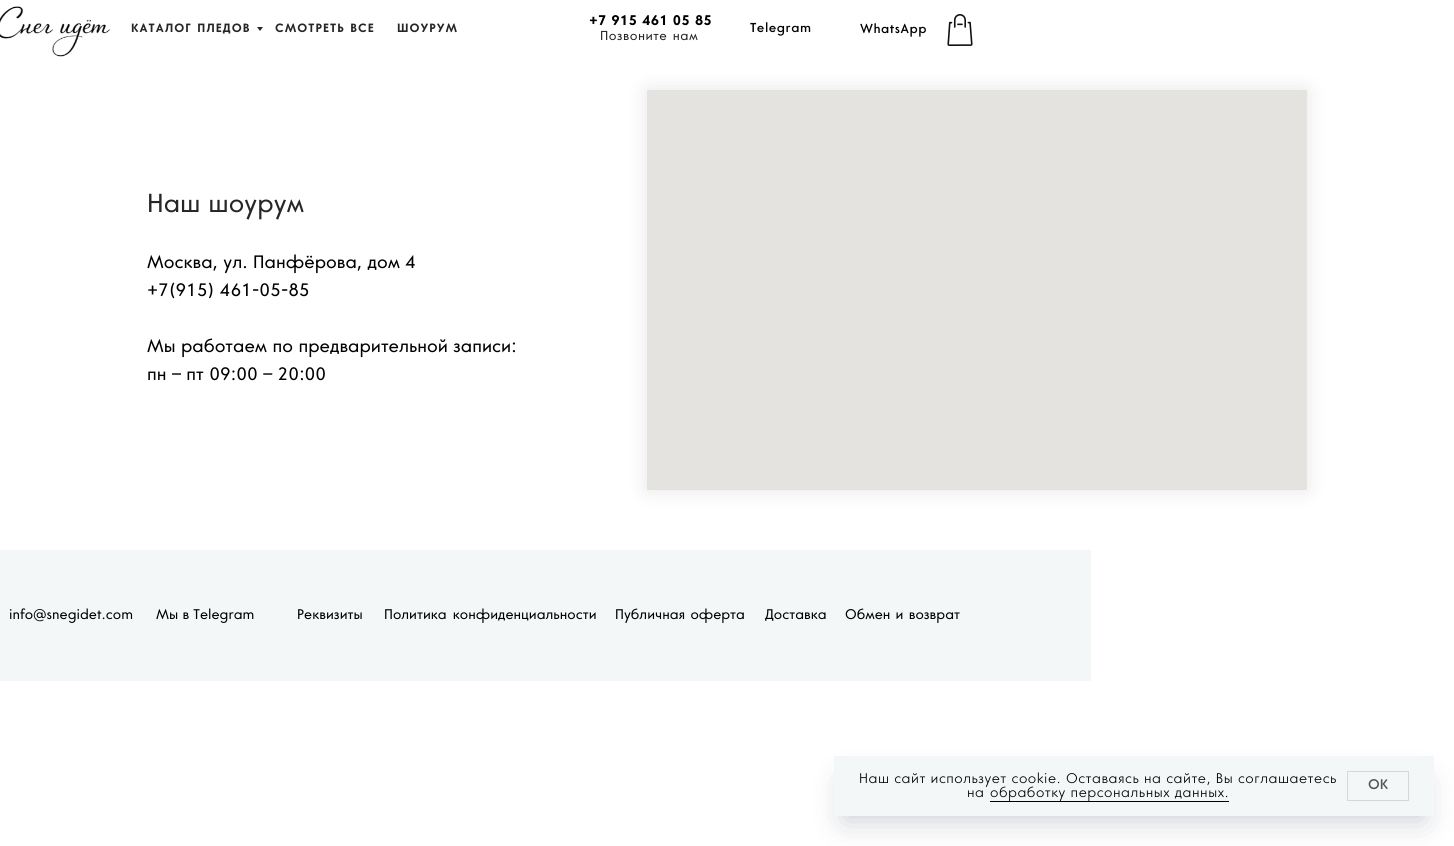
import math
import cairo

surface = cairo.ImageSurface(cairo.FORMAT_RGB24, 1454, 846)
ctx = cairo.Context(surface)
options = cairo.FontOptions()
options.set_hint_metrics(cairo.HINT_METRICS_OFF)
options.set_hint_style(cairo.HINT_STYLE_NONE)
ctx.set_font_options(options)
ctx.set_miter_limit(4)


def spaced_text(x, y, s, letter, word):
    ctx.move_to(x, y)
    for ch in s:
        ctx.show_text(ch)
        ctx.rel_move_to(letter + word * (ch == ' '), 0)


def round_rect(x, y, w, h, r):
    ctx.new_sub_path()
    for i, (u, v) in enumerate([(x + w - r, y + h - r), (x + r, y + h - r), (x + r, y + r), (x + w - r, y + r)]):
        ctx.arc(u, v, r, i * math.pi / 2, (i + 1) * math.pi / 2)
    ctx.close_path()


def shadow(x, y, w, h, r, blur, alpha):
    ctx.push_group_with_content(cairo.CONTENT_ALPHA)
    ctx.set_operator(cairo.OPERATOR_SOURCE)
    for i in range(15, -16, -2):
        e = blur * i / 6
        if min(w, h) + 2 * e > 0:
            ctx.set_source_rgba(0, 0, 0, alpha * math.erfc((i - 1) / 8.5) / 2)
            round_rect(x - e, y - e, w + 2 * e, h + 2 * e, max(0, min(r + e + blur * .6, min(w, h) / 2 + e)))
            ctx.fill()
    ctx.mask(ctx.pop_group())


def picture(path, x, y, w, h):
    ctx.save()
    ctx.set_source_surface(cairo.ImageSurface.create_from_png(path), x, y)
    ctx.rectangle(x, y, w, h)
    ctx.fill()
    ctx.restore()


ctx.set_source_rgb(1, 1, 1)
ctx.paint()
picture("img1.png", 0, 6, 110, 51)
ctx.select_font_face("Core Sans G", cairo.FONT_SLANT_NORMAL, cairo.FONT_WEIGHT_BOLD)
ctx.set_font_size(14)
ctx.set_source_rgb(0, 0, 0)
spaced_text(589, 25, "+7 915 461 05 85", 0, 0.5)
picture("img2.png", 947, 14, 26, 32)
ctx.set_font_size(12)
ctx.set_source_rgb(0.149, 0.149, 0.149)
spaced_text(131, 32, "КАТАЛОГ ПЛЕДОВ", 1, 1)
ctx.set_source_rgb(0.161, 0.161, 0.161)
ctx.new_path()
ctx.move_to(257, 27)
ctx.line_to(263, 27)
ctx.line_to(260, 31)
ctx.close_path()
ctx.fill()
ctx.set_source_rgb(0.149, 0.149, 0.149)
spaced_text(275, 32, "СМОТРЕТЬ ВСЕ", 1, 1)
spaced_text(397, 32, "ШОУРУМ", 1, 0)
ctx.select_font_face("Core Sans G")
ctx.set_font_size(13)
spaced_text(600, 40, "Позвоните нам", 0.5, 1)
ctx.select_font_face("Core Sans G Medium")
ctx.set_source_rgb(0, 0, 0)
spaced_text(750, 32, "Telegram", 0.5, 0)
spaced_text(860, 33, "WhatsApp", 0.5, 0)
ctx.select_font_face("Core Sans G")
ctx.set_font_size(26)
ctx.set_source_rgb(0.149, 0.149, 0.149)
ctx.move_to(147, 212)
ctx.show_text("Наш шоурум")
ctx.set_font_size(18)
ctx.set_source_rgb(0, 0, 0)
ctx.move_to(147, 268)
ctx.show_text("Москва, ул. Панфёрова, дом 4")
ctx.move_to(147, 296)
ctx.show_text("+7(915) 461-05-85")
ctx.move_to(147, 352)
ctx.show_text("Мы работаем по предварительной записи:")
ctx.move_to(147, 380)
ctx.show_text("пн – пт 09:00 – 20:00")
ctx.set_source_rgb(0, 0, 0)
shadow(647, 90, 660, 400, 0, 10, 0.1)
ctx.set_source_rgb(0.898, 0.89, 0.875)
ctx.rectangle(647, 90, 660, 400)
ctx.fill()
ctx.set_source_rgb(0.957, 0.965, 0.969)
ctx.rectangle(0, 550, 1091, 131)
ctx.fill()
ctx.set_font_size(14)
ctx.set_source_rgb(0, 0, 0)
ctx.move_to(9, 619)
ctx.show_text("info@snegidet.com")
ctx.move_to(156, 619)
ctx.show_text("Мы в Telegram")
ctx.move_to(297, 619)
ctx.show_text("Реквизиты")
spaced_text(384, 619, "Политика конфиденциальности", 0, 2)
spaced_text(615, 619, "Публичная оферта", 0, 1)
ctx.move_to(765, 619)
ctx.show_text("Доставка")
spaced_text(845, 619, "Обмен и возврат", 0, 1)
ctx.set_source_rgb(0, 0.043, 0.188)
shadow(844, 781, 580, 40, 0, 15, 0.2)
ctx.set_source_rgb(0.953, 0.965, 0.969)
ctx.rectangle(834, 756, 600, 60)
ctx.fill()
ctx.select_font_face("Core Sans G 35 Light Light")
ctx.set_source_rgb(0, 0, 0)
spaced_text(859, 783, "Наш сайт использует cookie. Оставаясь на сайте, Вы соглашаетесь", 0.5, 0)
spaced_text(967, 797, "на", 0.5, 0)
ctx.rectangle(990, 801, 239, 1)
ctx.fill()
spaced_text(990, 797, "обработку персональных данных.", 0.5, 0)
ctx.rectangle(1347.5, 771.5, 61, 29)
ctx.set_source_rgb(0.843, 0.843, 0.843)
ctx.set_line_width(1)
ctx.stroke()
ctx.select_font_face("Core Sans G Medium")
ctx.set_source_rgb(0.333, 0.333, 0.333)
ctx.move_to(1368, 789)
ctx.show_text("OK")
surface.write_to_png("page.png")
